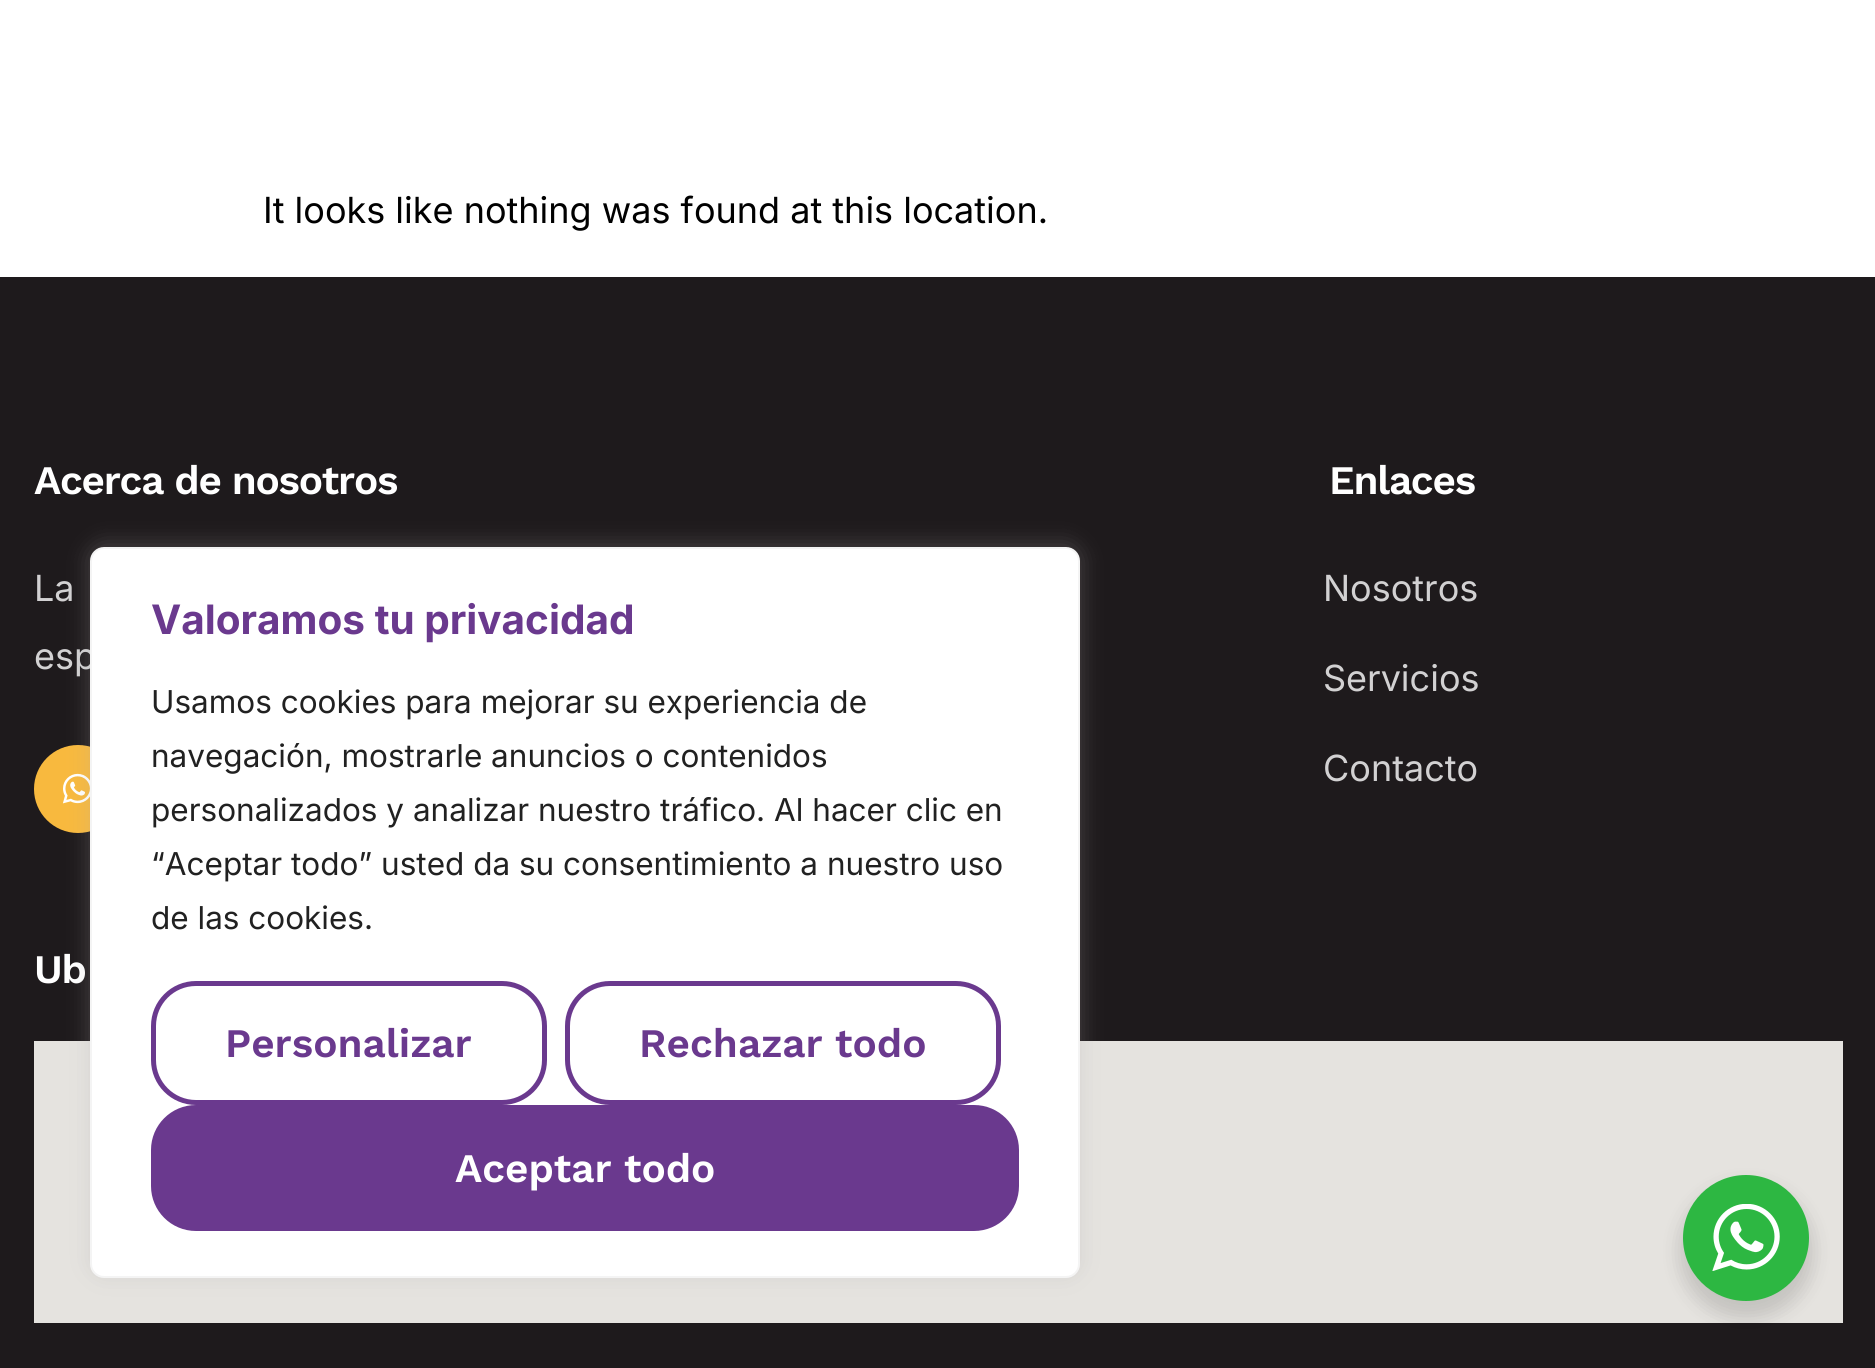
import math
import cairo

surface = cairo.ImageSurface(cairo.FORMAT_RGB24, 1875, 1368)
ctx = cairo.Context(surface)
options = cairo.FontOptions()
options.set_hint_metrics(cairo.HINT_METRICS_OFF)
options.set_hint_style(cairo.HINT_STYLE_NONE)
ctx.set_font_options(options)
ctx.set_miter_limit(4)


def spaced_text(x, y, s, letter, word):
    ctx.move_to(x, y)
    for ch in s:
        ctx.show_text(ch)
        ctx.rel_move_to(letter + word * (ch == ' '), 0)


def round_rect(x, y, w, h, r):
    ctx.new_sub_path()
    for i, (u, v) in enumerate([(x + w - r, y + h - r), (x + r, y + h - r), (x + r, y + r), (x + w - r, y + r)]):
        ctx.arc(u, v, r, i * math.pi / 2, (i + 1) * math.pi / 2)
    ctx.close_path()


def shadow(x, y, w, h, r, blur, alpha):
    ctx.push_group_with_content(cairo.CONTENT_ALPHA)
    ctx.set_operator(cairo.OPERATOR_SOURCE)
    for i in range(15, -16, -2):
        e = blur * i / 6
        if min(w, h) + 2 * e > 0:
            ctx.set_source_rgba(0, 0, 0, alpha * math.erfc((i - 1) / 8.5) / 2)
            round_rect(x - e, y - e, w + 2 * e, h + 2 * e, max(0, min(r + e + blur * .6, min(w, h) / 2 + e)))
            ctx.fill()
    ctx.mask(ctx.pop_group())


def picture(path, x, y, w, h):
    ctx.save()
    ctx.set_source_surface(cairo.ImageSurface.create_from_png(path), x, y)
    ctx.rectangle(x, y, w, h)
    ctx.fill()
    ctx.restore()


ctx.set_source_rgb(1, 1, 1)
ctx.paint()
ctx.select_font_face("Inter")
ctx.set_font_size(36)
ctx.set_source_rgb(0, 0, 0)
ctx.move_to(263, 223)
ctx.show_text("It looks like nothing was found at this location.")
ctx.set_source_rgb(0.118, 0.102, 0.11)
ctx.rectangle(0, 277, 1875, 1091)
ctx.fill()
ctx.select_font_face("Work Sans SemiBold")
ctx.set_font_size(40.5)
ctx.set_source_rgb(1, 1, 1)
spaced_text(34, 494, "Acerca de nosotros", -1.25, 0)
ctx.select_font_face("Inter")
ctx.set_font_size(36)
ctx.set_source_rgb(0.824, 0.82, 0.824)
ctx.move_to(34, 601)
ctx.show_text("La")
ctx.move_to(34, 669)
ctx.show_text("esp")
ctx.set_source_rgb(0.969, 0.725, 0.243)
ctx.new_path()
ctx.arc(78, 789, 44, 0, 2 * math.pi)
ctx.fill()
picture("img1.png", 62, 773, 28, 31)
ctx.select_font_face("Work Sans SemiBold")
ctx.set_font_size(40.5)
ctx.set_source_rgb(1, 1, 1)
spaced_text(1329, 494, "Enlaces", -1.25, 0)
ctx.select_font_face("Inter")
ctx.set_font_size(36)
ctx.set_source_rgb(0.824, 0.82, 0.824)
ctx.move_to(1323, 601)
ctx.show_text("Nosotros")
ctx.move_to(1323, 691)
ctx.show_text("Servicios")
ctx.move_to(1323, 781)
ctx.show_text("Contacto")
ctx.select_font_face("Work Sans SemiBold")
ctx.set_font_size(40.5)
ctx.set_source_rgb(1, 1, 1)
spaced_text(34, 983, "Ub", -1.25, 0)
ctx.set_source_rgb(0.898, 0.89, 0.875)
ctx.rectangle(34, 1041, 1809, 282)
ctx.fill()
ctx.set_source_rgb(0.675, 0.671, 0.671)
shadow(90, 545, 990, 731, 14, 11, 0.3)
ctx.set_source_rgb(1, 1, 1)
round_rect(91, 548, 988, 729, 13)
ctx.fill_preserve()
ctx.set_source_rgb(0.957, 0.957, 0.957)
ctx.stroke()
ctx.select_font_face("Inter", cairo.FONT_SLANT_NORMAL, cairo.FONT_WEIGHT_BOLD)
ctx.set_source_rgb(0.416, 0.224, 0.557)
ctx.move_to(151, 634)
ctx.show_text("Valoramos tu privacidad")
ctx.select_font_face("Inter")
ctx.set_font_size(31.5)
ctx.set_source_rgb(0.129, 0.129, 0.129)
ctx.move_to(151, 713)
ctx.show_text("Usamos cookies para mejorar su experiencia de")
ctx.move_to(151, 767)
ctx.show_text("navegación, mostrarle anuncios o contenidos")
ctx.move_to(151, 821)
ctx.show_text("personalizados y analizar nuestro tráfico. Al hacer clic en")
ctx.move_to(151, 875)
ctx.show_text("“Aceptar todo” usted da su consentimiento a nuestro uso")
ctx.move_to(151, 929)
ctx.show_text("de las cookies.")
round_rect(153.5, 983.5, 391, 119, 42.5)
ctx.set_source_rgb(0.416, 0.224, 0.557)
ctx.set_line_width(5)
ctx.stroke()
ctx.select_font_face("Work Sans SemiBold")
ctx.set_font_size(40.5)
ctx.move_to(225, 1057)
ctx.show_text("Personalizar")
round_rect(567.5, 983.5, 431, 119, 42.5)
ctx.stroke()
ctx.move_to(639, 1057)
ctx.show_text("Rechazar todo")
round_rect(153.5, 1107.5, 863, 121, 42.5)
ctx.fill_preserve()
ctx.stroke()
ctx.set_source_rgb(1, 1, 1)
ctx.move_to(455, 1182)
ctx.show_text("Aceptar todo")
ctx.set_source_rgb(0, 0, 0)
shadow(1679, 1184, 135, 135, 67.5, 9, 0.14)
ctx.set_source_rgb(0.176, 0.718, 0.259)
ctx.arc(1746, 1238, 63, 0, 2 * math.pi)
ctx.fill()
picture("img2.png", 1712, 1204, 68, 67)
surface.write_to_png("page.png")
